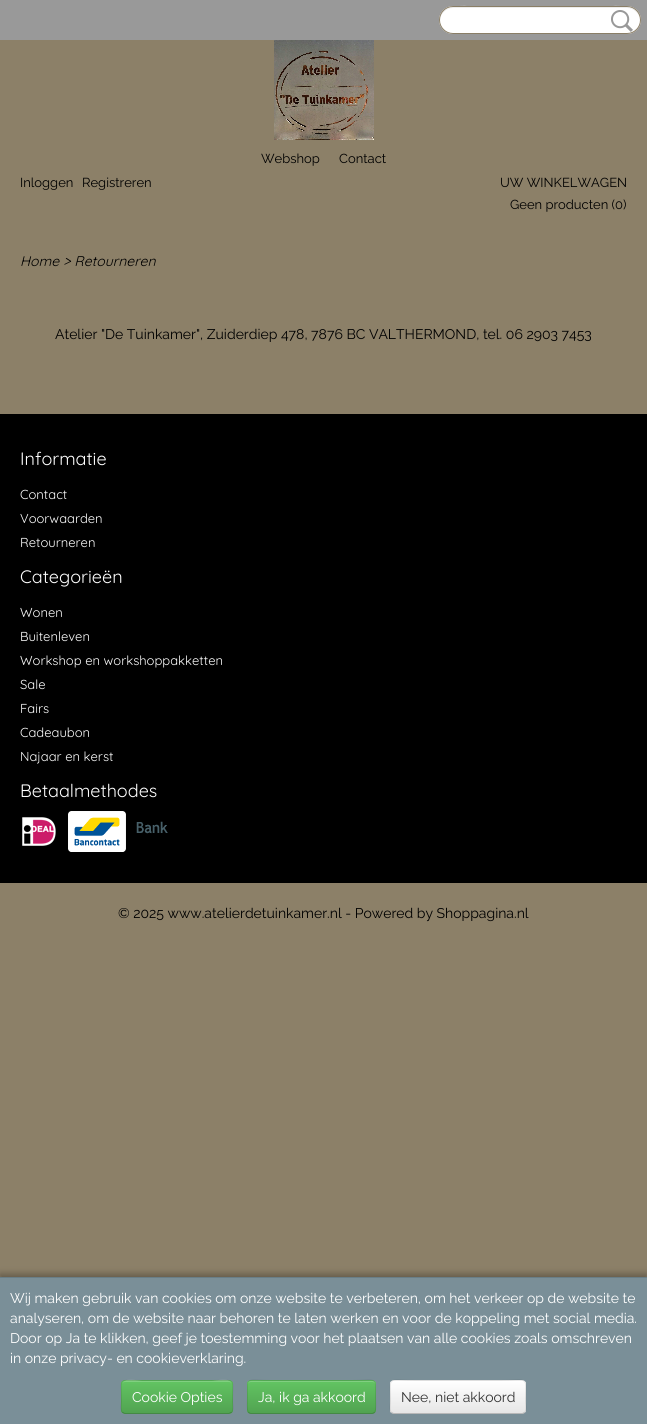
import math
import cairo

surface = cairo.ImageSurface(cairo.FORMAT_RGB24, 647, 1424)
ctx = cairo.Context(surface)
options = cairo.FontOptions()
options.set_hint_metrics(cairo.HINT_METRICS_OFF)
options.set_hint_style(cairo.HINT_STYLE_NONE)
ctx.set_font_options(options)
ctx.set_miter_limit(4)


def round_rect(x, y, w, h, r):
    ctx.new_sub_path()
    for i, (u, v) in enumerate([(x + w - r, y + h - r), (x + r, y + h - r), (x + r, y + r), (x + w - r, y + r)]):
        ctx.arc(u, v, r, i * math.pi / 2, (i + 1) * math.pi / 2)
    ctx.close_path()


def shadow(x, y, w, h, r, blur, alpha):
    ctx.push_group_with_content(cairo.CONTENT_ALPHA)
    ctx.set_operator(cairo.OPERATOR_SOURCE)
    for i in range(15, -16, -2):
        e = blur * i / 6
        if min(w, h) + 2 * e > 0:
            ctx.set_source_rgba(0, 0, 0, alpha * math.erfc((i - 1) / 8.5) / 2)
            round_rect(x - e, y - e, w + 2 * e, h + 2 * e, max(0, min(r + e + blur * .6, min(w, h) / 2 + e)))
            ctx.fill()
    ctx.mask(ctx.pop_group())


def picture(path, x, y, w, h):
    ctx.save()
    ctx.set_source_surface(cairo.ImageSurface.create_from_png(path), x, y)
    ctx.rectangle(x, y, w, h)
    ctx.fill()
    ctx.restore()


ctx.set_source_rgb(0.549, 0.502, 0.408)
ctx.paint()
ctx.set_source_rgb(0.6, 0.6, 0.6)
ctx.rectangle(0, 0, 647, 40)
ctx.fill()
ctx.set_source_rgb(1, 1, 1)
round_rect(439, 6, 202, 28, 14)
ctx.fill()
ctx.set_source_rgb(0.925, 0.925, 0.925)
ctx.new_path()
ctx.move_to(453, 8)
ctx.line_to(627, 8)
ctx.curve_to(634, 8, 640, 14, 640, 21)
ctx.curve_to(641, 0, 606, 7, 598, 7)
ctx.line_to(482, 7)
ctx.curve_to(474, 7, 439, 0, 440, 21)
ctx.curve_to(440, 14, 446, 8, 453, 8)
ctx.close_path()
ctx.fill()
round_rect(439.5, 6.5, 201, 27, 13.5)
ctx.set_source_rgb(0.541, 0.494, 0.4)
ctx.set_line_width(1)
ctx.stroke()
picture("img1.png", 611, 10, 22, 22)
picture("img2.png", 274, 40, 100, 100)
ctx.select_font_face("Raleway")
ctx.set_font_size(13)
ctx.set_source_rgb(0, 0, 0)
ctx.move_to(261, 163)
ctx.show_text("Webshop")
ctx.move_to(339, 163)
ctx.show_text("Contact")
ctx.move_to(20, 187)
ctx.show_text("Inloggen")
ctx.move_to(82, 187)
ctx.show_text("Registreren")
ctx.move_to(500, 187)
ctx.show_text("UW WINKELWAGEN")
ctx.move_to(510, 209)
ctx.show_text("Geen producten (0)")
ctx.select_font_face("Quicksand", cairo.FONT_SLANT_ITALIC)
ctx.set_font_size(14)
ctx.move_to(20, 266)
ctx.show_text("Home > Retourneren")
ctx.select_font_face("Raleway")
ctx.move_to(55, 339)
ctx.show_text("Atelier \"De Tuinkamer\", Zuiderdiep 478, 7876 BC VALTHERMOND, tel. 06 2903 7453")
ctx.rectangle(0, 414, 647, 469)
ctx.fill()
ctx.select_font_face("Quicksand")
ctx.set_font_size(18)
ctx.set_source_rgb(1, 1, 1)
ctx.move_to(20, 465)
ctx.show_text("Informatie")
ctx.set_font_size(13)
ctx.move_to(20, 499)
ctx.show_text("Contact")
ctx.move_to(20, 523)
ctx.show_text("Voorwaarden")
ctx.move_to(20, 547)
ctx.show_text("Retourneren")
ctx.set_font_size(18)
ctx.move_to(20, 583)
ctx.show_text("Categorieën")
ctx.set_font_size(13)
ctx.move_to(20, 617)
ctx.show_text("Wonen")
ctx.move_to(20, 641)
ctx.show_text("Buitenleven")
ctx.move_to(20, 665)
ctx.show_text("Workshop en workshoppakketten")
ctx.move_to(20, 689)
ctx.show_text("Sale")
ctx.move_to(20, 713)
ctx.show_text("Fairs")
ctx.move_to(20, 737)
ctx.show_text("Cadeaubon")
ctx.move_to(20, 761)
ctx.show_text("Najaar en kerst")
ctx.set_font_size(18)
ctx.move_to(20, 797)
ctx.show_text("Betaalmethodes")
picture("img3.png", 22, 817, 34, 29)
picture("img4.png", 68, 811, 58, 41)
picture("img5.png", 136, 821, 32, 13)
ctx.select_font_face("Raleway")
ctx.set_font_size(14)
ctx.set_source_rgb(0, 0, 0)
ctx.move_to(118, 918)
ctx.show_text("© 2025 www.atelierdetuinkamer.nl - Powered by Shoppagina.nl")
ctx.set_source_rgb(0, 0, 0)
shadow(0, 1274, 647, 147, 0, 3.5, 0.3)
ctx.set_source_rgb(0.478, 0.561, 0.596)
ctx.rectangle(0, 1278, 647, 146)
ctx.fill()
ctx.set_source_rgb(0.412, 0.494, 0.529)
ctx.rectangle(0, 1277, 647, 1)
ctx.fill()
ctx.set_source_rgb(1, 1, 1)
ctx.move_to(10, 1303)
ctx.show_text("Wij maken gebruik van cookies om onze website te verbeteren, om het verkeer op de website te")
ctx.move_to(10, 1323)
ctx.show_text("analyseren, om de website naar behoren te laten werken en voor de koppeling met social media.")
ctx.move_to(10, 1343)
ctx.show_text("Door op Ja te klikken, geef je toestemming voor het plaatsen van alle cookies zoals omschreven")
ctx.move_to(10, 1363)
ctx.show_text("in onze privacy- en cookieverklaring.")
ctx.set_source_rgb(0.357, 0.718, 0.357)
round_rect(121, 1380, 112, 34, 4)
ctx.fill()
ctx.save()
round_rect(121, 1380, 112, 34, 4)
ctx.clip()
gradient = cairo.LinearGradient(177, 1381, 177, 1413)
gradient.add_color_stop_rgba(0, 0.384, 0.769, 0.384, 1)
gradient.add_color_stop_rgba(1, 0.318, 0.639, 0.318, 1)
ctx.set_source(gradient)
ctx.rectangle(121, 1381, 112, 32)
ctx.fill()
ctx.restore()
ctx.set_source_rgba(1, 1, 1, 0.2)
ctx.new_path()
ctx.move_to(125, 1382)
ctx.line_to(229, 1382)
ctx.curve_to(231, 1382, 232, 1383, 232, 1385)
ctx.curve_to(232, 1376, 214, 1381, 212, 1381)
ctx.line_to(142, 1381)
ctx.curve_to(140, 1381, 122, 1376, 122, 1385)
ctx.curve_to(122, 1383, 123, 1382, 125, 1382)
ctx.close_path()
ctx.fill()
ctx.new_path()
ctx.move_to(231.5, 1412.5)
ctx.line_to(229, 1413.5)
ctx.line_to(124.5, 1413.5)
ctx.line_to(122.5, 1412.5)
ctx.set_source_rgba(0, 0, 0, 0.25)
ctx.stroke()
ctx.new_path()
ctx.move_to(122.5, 1412.5)
ctx.curve_to(120, 1410, 121.5, 1404, 121.5, 1401.5)
ctx.curve_to(121.5, 1376.5, 117, 1380.5, 142.5, 1380.5)
ctx.line_to(211.5, 1380.5)
ctx.curve_to(237, 1380.5, 232.5, 1376.5, 232.5, 1401.5)
ctx.curve_to(232.5, 1404, 234, 1410, 231.5, 1412.5)
ctx.set_source_rgba(0, 0, 0, 0.1)
ctx.stroke()
ctx.set_source_rgb(1, 1, 1)
ctx.move_to(132, 1402)
ctx.show_text("Cookie Opties")
ctx.set_source_rgb(0.357, 0.718, 0.357)
round_rect(247, 1380, 129, 34, 4)
ctx.fill()
ctx.save()
round_rect(247, 1380, 129, 34, 4)
ctx.clip()
gradient = cairo.LinearGradient(312, 1381, 312, 1413)
gradient.add_color_stop_rgba(0, 0.384, 0.769, 0.384, 1)
gradient.add_color_stop_rgba(1, 0.318, 0.639, 0.318, 1)
ctx.set_source(gradient)
ctx.rectangle(247, 1381, 129, 32)
ctx.fill()
ctx.restore()
ctx.set_source_rgb(0.506, 0.812, 0.506)
ctx.new_path()
ctx.move_to(251, 1382)
ctx.line_to(372, 1382)
ctx.curve_to(374, 1382, 375, 1383, 375, 1385)
ctx.line_to(375, 1384)
ctx.curve_to(375, 1382, 374, 1381, 372, 1381)
ctx.line_to(251, 1381)
ctx.curve_to(249, 1381, 248, 1382, 248, 1384)
ctx.line_to(248, 1385)
ctx.curve_to(248, 1383, 249, 1382, 251, 1382)
ctx.close_path()
ctx.fill()
ctx.new_path()
ctx.move_to(374.5, 1412.5)
ctx.curve_to(374, 1413, 373, 1413.5, 372, 1413.5)
ctx.line_to(251, 1413.5)
ctx.curve_to(250, 1413.5, 249, 1413, 248.5, 1412.5)
ctx.set_source_rgba(0, 0, 0, 0.25)
ctx.stroke()
ctx.new_path()
ctx.move_to(248.5, 1412.5)
ctx.curve_to(246.5, 1410, 247.5, 1400, 247.5, 1397)
ctx.curve_to(247.5, 1375.5, 245.5, 1380.5, 271, 1380.5)
ctx.line_to(352, 1380.5)
ctx.curve_to(377.5, 1380.5, 375.5, 1375.5, 375.5, 1397)
ctx.curve_to(375.5, 1400, 376.5, 1410, 374.5, 1412.5)
ctx.set_source_rgba(0, 0, 0, 0.1)
ctx.stroke()
ctx.set_source_rgb(1, 1, 1)
ctx.move_to(258, 1402)
ctx.show_text("Ja, ik ga akkoord")
ctx.set_source_rgb(0.961, 0.961, 0.961)
round_rect(390, 1380, 136, 34, 4)
ctx.fill()
ctx.save()
round_rect(390, 1380, 136, 34, 4)
ctx.clip()
gradient = cairo.LinearGradient(458, 1381, 458, 1413)
gradient.add_color_stop_rgba(0, 1, 1, 1, 1)
gradient.add_color_stop_rgba(1, 0.902, 0.902, 0.902, 1)
ctx.set_source(gradient)
ctx.rectangle(390, 1381, 136, 32)
ctx.fill()
ctx.restore()
ctx.new_path()
ctx.move_to(524.5, 1412.5)
ctx.curve_to(524, 1413, 523, 1413.5, 522, 1413.5)
ctx.line_to(394, 1413.5)
ctx.curve_to(393, 1413.5, 392, 1413, 391.5, 1412.5)
ctx.set_source_rgba(0, 0, 0, 0.25)
ctx.stroke()
ctx.new_path()
ctx.move_to(391.5, 1412.5)
ctx.curve_to(389, 1410, 390.5, 1404, 390.5, 1401.5)
ctx.curve_to(390.5, 1375, 386, 1380.5, 415.5, 1380.5)
ctx.line_to(500.5, 1380.5)
ctx.curve_to(530, 1380.5, 525.5, 1375, 525.5, 1401.5)
ctx.curve_to(525.5, 1404, 527, 1410, 524.5, 1412.5)
ctx.set_source_rgba(0, 0, 0, 0.1)
ctx.stroke()
ctx.set_source_rgb(0.2, 0.2, 0.2)
ctx.move_to(401, 1402)
ctx.show_text("Nee, niet akkoord")
surface.write_to_png("page.png")
